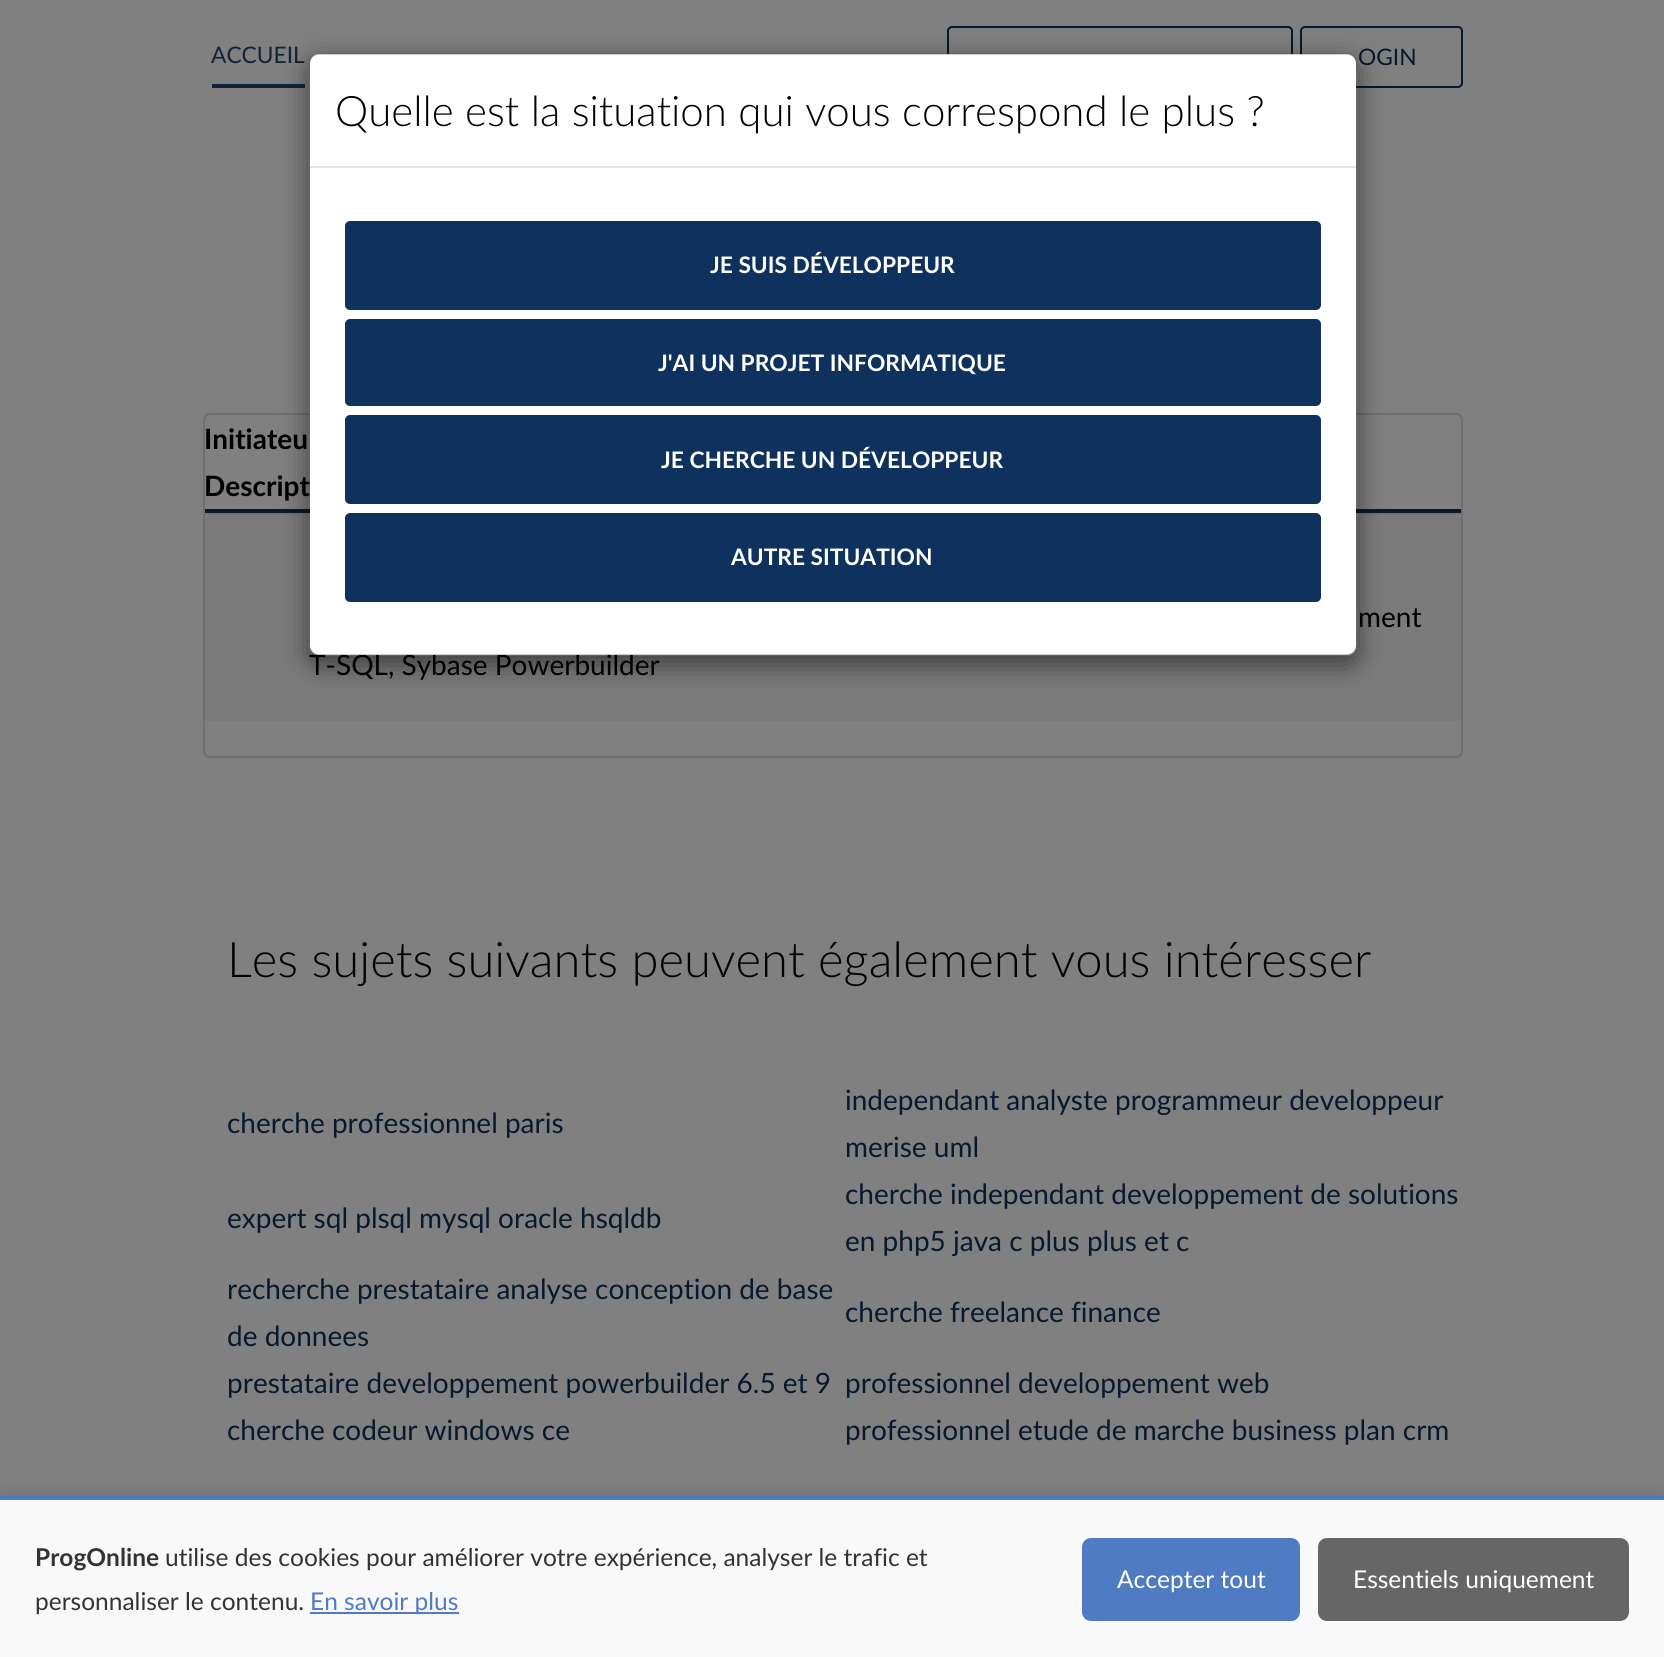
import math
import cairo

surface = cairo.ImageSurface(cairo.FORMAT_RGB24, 1664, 1657)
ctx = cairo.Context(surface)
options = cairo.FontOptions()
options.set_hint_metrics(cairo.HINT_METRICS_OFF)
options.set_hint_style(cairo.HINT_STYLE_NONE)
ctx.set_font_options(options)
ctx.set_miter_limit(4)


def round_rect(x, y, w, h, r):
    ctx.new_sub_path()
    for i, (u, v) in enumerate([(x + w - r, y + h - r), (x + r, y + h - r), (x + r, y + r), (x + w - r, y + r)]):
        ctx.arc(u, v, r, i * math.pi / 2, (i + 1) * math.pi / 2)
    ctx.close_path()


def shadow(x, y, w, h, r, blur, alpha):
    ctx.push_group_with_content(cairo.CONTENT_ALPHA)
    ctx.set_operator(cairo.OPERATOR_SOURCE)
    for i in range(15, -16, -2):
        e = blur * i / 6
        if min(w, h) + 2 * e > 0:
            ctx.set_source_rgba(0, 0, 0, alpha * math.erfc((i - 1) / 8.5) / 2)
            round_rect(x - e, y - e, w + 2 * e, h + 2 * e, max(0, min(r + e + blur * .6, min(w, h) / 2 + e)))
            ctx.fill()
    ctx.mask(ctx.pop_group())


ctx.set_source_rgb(0.502, 0.502, 0.502)
ctx.paint()
ctx.set_source_rgb(0.078, 0.137, 0.216)
ctx.rectangle(212, 84, 93, 4)
ctx.fill()
ctx.select_font_face("Lato")
ctx.set_font_size(22.75)
ctx.move_to(211, 63)
ctx.show_text("ACCUEIL")
round_rect(948, 27, 344, 60, 4)
ctx.set_source_rgb(0.031, 0.098, 0.184)
ctx.stroke()
round_rect(1301, 27, 161, 60, 4)
ctx.stroke()
ctx.move_to(1358, 65)
ctx.show_text("OGIN")
round_rect(204, 414, 1258, 343, 6)
ctx.set_source_rgb(0.435, 0.435, 0.435)
ctx.stroke()
ctx.set_source_rgb(0.482, 0.482, 0.482)
ctx.rectangle(205, 515, 1256, 206)
ctx.fill()
ctx.set_source_rgb(0.459, 0.459, 0.459)
ctx.rectangle(205, 513, 1256, 2)
ctx.fill()
ctx.set_source_rgb(0.031, 0.098, 0.184)
ctx.rectangle(205, 509, 1256, 4)
ctx.fill()
ctx.save()
ctx.set_fill_rule(cairo.FILL_RULE_EVEN_ODD)
ctx.new_path()
ctx.move_to(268, 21)
ctx.line_to(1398, 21)
ctx.line_to(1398, 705)
ctx.line_to(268, 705)
ctx.close_path()
ctx.move_to(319, 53)
ctx.line_to(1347, 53)
ctx.curve_to(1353, 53, 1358, 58, 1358, 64)
ctx.line_to(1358, 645)
ctx.curve_to(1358, 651, 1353, 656, 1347, 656)
ctx.line_to(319, 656)
ctx.curve_to(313, 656, 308, 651, 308, 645)
ctx.line_to(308, 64)
ctx.curve_to(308, 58, 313, 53, 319, 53)
ctx.close_path()
ctx.clip()
ctx.set_source_rgb(0, 0, 0)
shadow(308, 61, 1050, 604, 11, 13, 0.5)
ctx.restore()
ctx.set_font_size(28)
ctx.set_source_rgb(0, 0, 0)
ctx.move_to(309, 675)
ctx.show_text("T-SQL, Sybase Powerbuilder")
ctx.set_source_rgb(1, 1, 1)
round_rect(310, 54, 1046, 601, 9)
ctx.fill()
ctx.select_font_face("Lato", cairo.FONT_SLANT_NORMAL, cairo.FONT_WEIGHT_BOLD)
ctx.set_source_rgb(0, 0, 0)
ctx.move_to(204, 496)
ctx.show_text("Descript")
round_rect(309, 54, 1048, 601, 10)
ctx.set_source_rgba(0, 0, 0, 0.2)
ctx.stroke()
ctx.set_source_rgb(0.898, 0.898, 0.898)
ctx.rectangle(310, 166, 1046, 2)
ctx.fill()
ctx.select_font_face("Lato Light")
ctx.set_font_size(42)
ctx.set_source_rgb(0, 0, 0)
ctx.move_to(335, 126)
ctx.show_text("Quelle est la situation qui vous correspond le plus ?")
ctx.set_source_rgb(0.059, 0.192, 0.369)
round_rect(346, 222, 974, 87, 4)
ctx.fill_preserve()
ctx.stroke()
ctx.select_font_face("Lato", cairo.FONT_SLANT_NORMAL, cairo.FONT_WEIGHT_BOLD)
ctx.set_font_size(22.75)
ctx.set_source_rgb(1, 1, 1)
ctx.move_to(710, 273)
ctx.show_text("JE SUIS DÉVELOPPEUR")
ctx.set_source_rgb(0.059, 0.192, 0.369)
round_rect(346, 320, 974, 85, 4)
ctx.fill_preserve()
ctx.stroke()
ctx.set_source_rgb(1, 1, 1)
ctx.move_to(658, 371)
ctx.show_text("J'AI UN PROJET INFORMATIQUE")
ctx.set_source_rgb(0.059, 0.192, 0.369)
round_rect(346, 416, 974, 87, 4)
ctx.fill_preserve()
ctx.stroke()
ctx.set_source_rgb(1, 1, 1)
ctx.move_to(661, 468)
ctx.show_text("JE CHERCHE UN DÉVELOPPEUR")
ctx.set_source_rgb(0.059, 0.192, 0.369)
round_rect(346, 514, 974, 87, 4)
ctx.fill_preserve()
ctx.stroke()
ctx.set_source_rgb(1, 1, 1)
ctx.move_to(731, 565)
ctx.show_text("AUTRE SITUATION")
ctx.set_font_size(28)
ctx.set_source_rgb(0, 0, 0)
ctx.move_to(204, 449)
ctx.show_text("Initiateu")
ctx.select_font_face("Lato")
ctx.move_to(1358, 627)
ctx.show_text("ment")
ctx.select_font_face("Lato Light")
ctx.set_font_size(49)
ctx.move_to(227, 977)
ctx.show_text("Les sujets suivants peuvent également vous intéresser")
ctx.select_font_face("Lato")
ctx.set_font_size(28)
ctx.set_source_rgb(0.031, 0.098, 0.184)
ctx.move_to(227, 1133)
ctx.show_text("cherche professionnel paris")
ctx.move_to(845, 1110)
ctx.show_text("independant analyste programmeur developpeur")
ctx.move_to(845, 1157)
ctx.show_text("merise uml")
ctx.move_to(227, 1228)
ctx.show_text("expert sql plsql mysql oracle hsqldb")
ctx.move_to(845, 1204)
ctx.show_text("cherche independant developpement de solutions")
ctx.move_to(845, 1251)
ctx.show_text("en php5 java c plus plus et c")
ctx.move_to(227, 1299)
ctx.show_text("recherche prestataire analyse conception de base")
ctx.move_to(227, 1346)
ctx.show_text("de donnees")
ctx.move_to(845, 1322)
ctx.show_text("cherche freelance finance")
ctx.move_to(227, 1393)
ctx.show_text("prestataire developpement powerbuilder 6.5 et 9")
ctx.move_to(845, 1393)
ctx.show_text("professionnel developpement web")
ctx.move_to(227, 1440)
ctx.show_text("cherche codeur windows ce")
ctx.move_to(845, 1440)
ctx.show_text("professionnel etude de marche business plan crm")
ctx.set_source_rgb(0, 0, 0)
shadow(0, 1493, 1664, 161, 0, 9, 0.1)
ctx.set_source_rgb(0.973, 0.973, 0.973)
ctx.rectangle(0, 1500, 1664, 157)
ctx.fill()
ctx.set_source_rgb(0.31, 0.482, 0.761)
ctx.rectangle(0, 1496, 1664, 4)
ctx.fill()
ctx.select_font_face("Lato", cairo.FONT_SLANT_NORMAL, cairo.FONT_WEIGHT_BOLD)
ctx.set_font_size(24.5)
ctx.set_source_rgb(0.2, 0.2, 0.2)
ctx.move_to(35, 1566)
ctx.show_text("ProgOnline")
ctx.select_font_face("Lato")
ctx.move_to(165, 1566)
ctx.show_text("utilise des cookies pour améliorer votre expérience, analyser le trafic et")
ctx.move_to(35, 1610)
ctx.show_text("personnaliser le contenu.")
ctx.set_source_rgb(0.31, 0.482, 0.761)
ctx.rectangle(310, 1612, 149, 2)
ctx.fill()
ctx.move_to(310, 1610)
ctx.show_text("En savoir plus")
round_rect(1082, 1538, 218, 83, 9)
ctx.fill()
ctx.set_source_rgb(1, 1, 1)
ctx.move_to(1117, 1588)
ctx.show_text("Accepter tout")
ctx.set_source_rgb(0.4, 0.4, 0.4)
round_rect(1318, 1538, 311, 83, 9)
ctx.fill()
ctx.set_source_rgb(1, 1, 1)
ctx.move_to(1353, 1588)
ctx.show_text("Essentiels uniquement")
surface.write_to_png("page.png")
